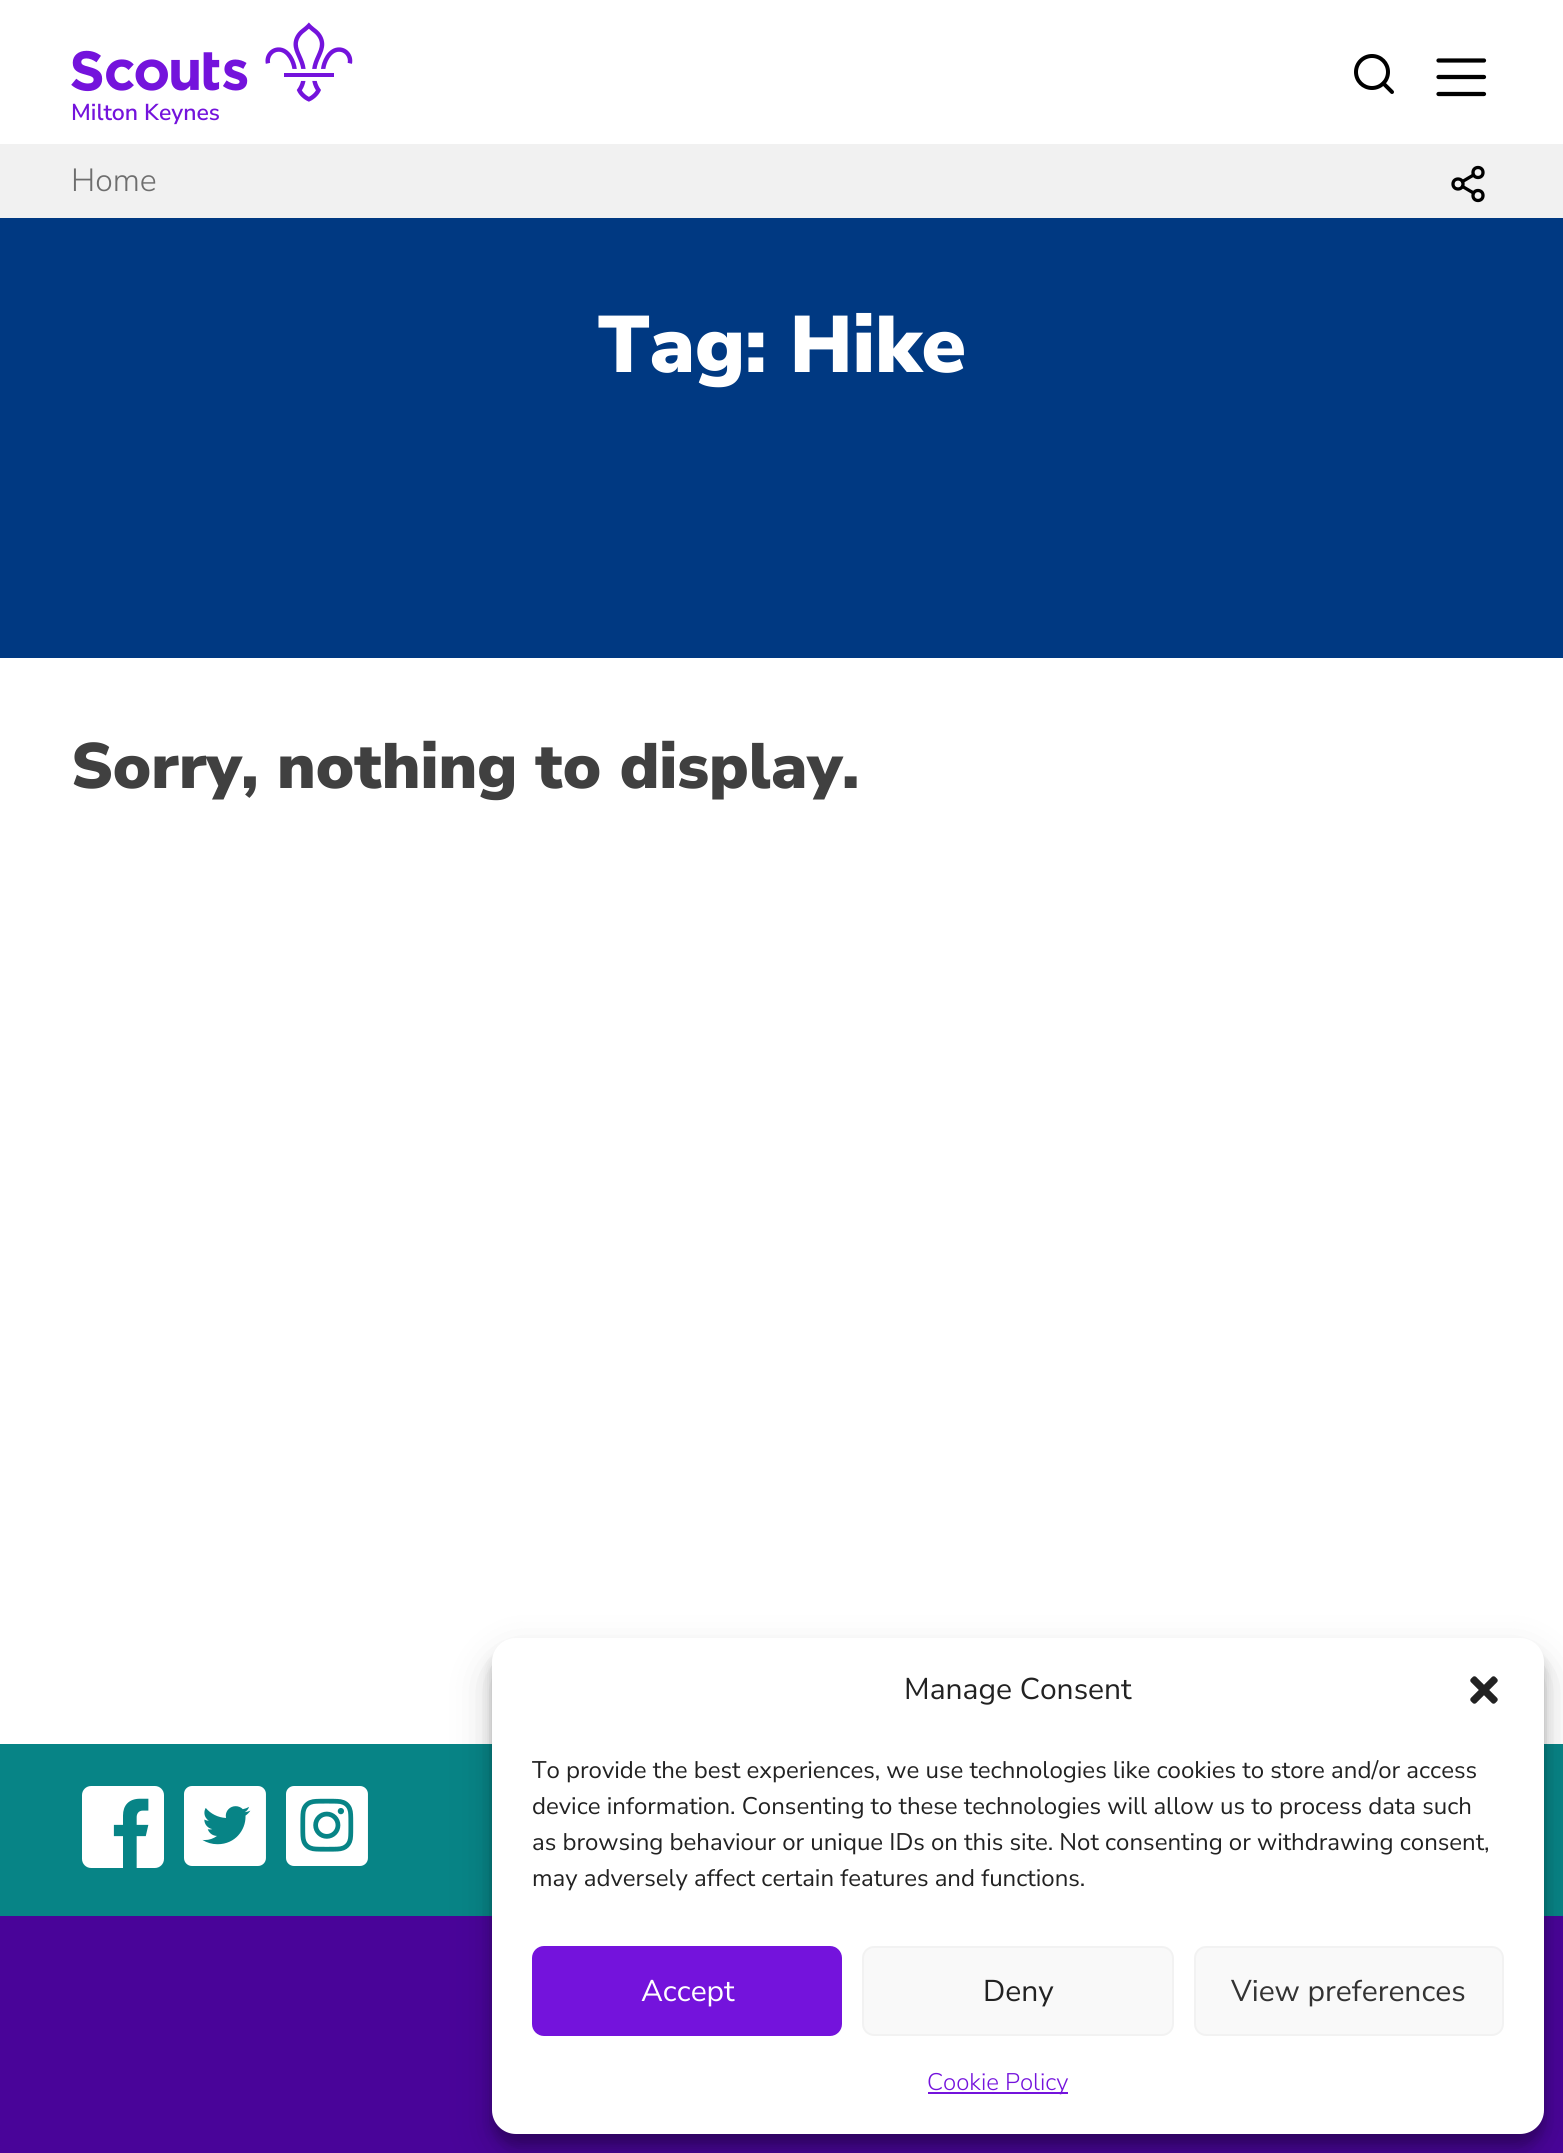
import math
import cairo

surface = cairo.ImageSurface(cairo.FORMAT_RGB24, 1563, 2153)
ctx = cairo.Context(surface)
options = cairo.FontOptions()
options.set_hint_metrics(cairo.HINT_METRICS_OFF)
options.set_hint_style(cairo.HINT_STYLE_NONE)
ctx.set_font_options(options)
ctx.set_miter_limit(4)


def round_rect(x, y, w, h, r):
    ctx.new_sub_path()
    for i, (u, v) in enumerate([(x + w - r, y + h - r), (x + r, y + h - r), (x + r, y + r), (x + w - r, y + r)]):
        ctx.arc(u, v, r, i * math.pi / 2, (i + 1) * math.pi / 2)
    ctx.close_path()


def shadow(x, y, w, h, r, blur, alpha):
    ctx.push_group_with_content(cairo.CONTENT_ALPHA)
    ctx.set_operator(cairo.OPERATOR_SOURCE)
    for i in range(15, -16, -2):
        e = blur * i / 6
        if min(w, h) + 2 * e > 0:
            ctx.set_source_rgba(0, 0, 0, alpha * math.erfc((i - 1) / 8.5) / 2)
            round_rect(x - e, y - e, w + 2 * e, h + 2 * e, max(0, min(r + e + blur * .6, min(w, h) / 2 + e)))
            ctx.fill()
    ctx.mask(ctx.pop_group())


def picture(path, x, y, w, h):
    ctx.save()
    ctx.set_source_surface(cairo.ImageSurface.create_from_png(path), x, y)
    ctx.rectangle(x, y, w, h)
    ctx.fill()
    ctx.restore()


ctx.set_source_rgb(1, 1, 1)
ctx.paint()
ctx.arc(1372, 72, 16, 0, 2 * math.pi)
ctx.set_source_rgb(0, 0, 0)
ctx.set_line_width(4)
ctx.stroke()
ctx.new_path()
ctx.move_to(1392, 92)
ctx.line_to(1383.5, 83.5)
ctx.set_line_cap(cairo.LINE_CAP_ROUND)
ctx.set_line_join(cairo.LINE_JOIN_ROUND)
ctx.stroke()
ctx.new_path()
ctx.move_to(1438.5, 60.5)
ctx.line_to(1484, 60.5)
ctx.move_to(1438.5, 77)
ctx.line_to(1484, 77)
ctx.move_to(1438.5, 94)
ctx.line_to(1484, 94)
ctx.set_line_width(4.2)
ctx.set_line_join(cairo.LINE_JOIN_MITER)
ctx.stroke()
picture("img1.png", 71, 22, 282, 80)
ctx.select_font_face("Nunito Sans SemiBold")
ctx.set_font_size(23)
ctx.set_source_rgb(0.455, 0.075, 0.863)
ctx.move_to(71, 120)
ctx.show_text("Milton Keynes")
ctx.set_source_rgb(0.945, 0.945, 0.945)
ctx.rectangle(0, 144, 1563, 74)
ctx.fill()
ctx.select_font_face("Nunito Sans Light")
ctx.set_font_size(32)
ctx.set_source_rgb(0.431, 0.431, 0.431)
ctx.move_to(71, 191)
ctx.show_text("Home")
ctx.new_path()
ctx.arc(1458, 184, 5, 0, 2 * math.pi)
ctx.set_source_rgb(0, 0, 0)
ctx.set_line_width(3.3)
ctx.set_line_cap(cairo.LINE_CAP_BUTT)
ctx.stroke()
ctx.arc(1478, 172.5, 5, 0, 2 * math.pi)
ctx.stroke()
ctx.arc(1478, 195.5, 5, 0, 2 * math.pi)
ctx.stroke()
ctx.new_path()
ctx.move_to(1462.5, 186.5)
ctx.line_to(1473.5, 193)
ctx.move_to(1473.5, 175)
ctx.line_to(1462.5, 181.5)
ctx.set_line_cap(cairo.LINE_CAP_ROUND)
ctx.set_line_join(cairo.LINE_JOIN_ROUND)
ctx.stroke()
ctx.set_source_rgb(0, 0.224, 0.51)
ctx.rectangle(0, 218, 1563, 440)
ctx.fill()
ctx.select_font_face("Nunito Sans Black")
ctx.set_font_size(80)
ctx.set_source_rgb(1, 1, 1)
ctx.move_to(598, 372)
ctx.show_text("Tag: Hike")
ctx.set_font_size(64)
ctx.set_source_rgb(0.251, 0.251, 0.251)
ctx.move_to(71, 788)
ctx.show_text("Sorry, nothing to display.")
ctx.set_source_rgb(0.031, 0.518, 0.525)
ctx.rectangle(0, 1744, 1563, 172)
ctx.fill()
picture("img2.png", 82, 1786, 82, 82)
picture("img3.png", 184, 1786, 82, 80)
picture("img4.png", 286, 1786, 82, 80)
ctx.set_source_rgb(0.286, 0.016, 0.6)
ctx.rectangle(0, 1916, 1563, 237)
ctx.fill()
ctx.set_source_rgb(0, 0, 0)
shadow(492, 1650, 1052, 496, 24, 6, 0.23)
shadow(492, 1658, 1052, 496, 24, 20, 0.19)
ctx.set_source_rgb(1, 1, 1)
round_rect(492, 1638, 1052, 496, 24)
ctx.fill()
ctx.select_font_face("Nunito Sans")
ctx.set_font_size(30)
ctx.set_source_rgb(0.133, 0.133, 0.133)
ctx.move_to(904, 1699)
ctx.show_text("Manage Consent")
picture("img5.png", 1470, 1676, 28, 28)
ctx.set_font_size(24)
ctx.move_to(532, 1778)
ctx.show_text("To provide the best experiences, we use technologies like cookies to store and/or access")
ctx.move_to(532, 1814)
ctx.show_text("device information. Consenting to these technologies will allow us to process data such")
ctx.move_to(532, 1850)
ctx.show_text("as browsing behaviour or unique IDs on this site. Not consenting or withdrawing consent,")
ctx.move_to(532, 1886)
ctx.show_text("may adversely affect certain features and functions.")
ctx.set_source_rgb(0.455, 0.075, 0.863)
round_rect(533, 1947, 308, 88, 11)
ctx.fill_preserve()
ctx.set_line_width(2)
ctx.set_line_cap(cairo.LINE_CAP_BUTT)
ctx.set_line_join(cairo.LINE_JOIN_MITER)
ctx.stroke()
ctx.set_font_size(30)
ctx.set_source_rgb(1, 1, 1)
ctx.move_to(641, 2001)
ctx.show_text("Accept")
ctx.set_source_rgb(0.976, 0.976, 0.976)
round_rect(863, 1947, 310, 88, 11)
ctx.fill_preserve()
ctx.set_source_rgb(0.949, 0.949, 0.949)
ctx.stroke()
ctx.set_source_rgb(0.133, 0.133, 0.133)
ctx.move_to(983, 2001)
ctx.show_text("Deny")
ctx.set_source_rgb(0.976, 0.976, 0.976)
round_rect(1195, 1947, 308, 88, 11)
ctx.fill_preserve()
ctx.set_source_rgb(0.949, 0.949, 0.949)
ctx.stroke()
ctx.set_source_rgb(0.2, 0.2, 0.2)
ctx.move_to(1231, 2001)
ctx.show_text("View preferences")
ctx.set_source_rgb(0.455, 0.075, 0.863)
ctx.rectangle(928, 2092, 140, 2)
ctx.fill()
ctx.select_font_face("Nunito Sans Light")
ctx.set_font_size(24)
ctx.move_to(927, 2090)
ctx.show_text("Cookie Policy")
surface.write_to_png("page.png")
